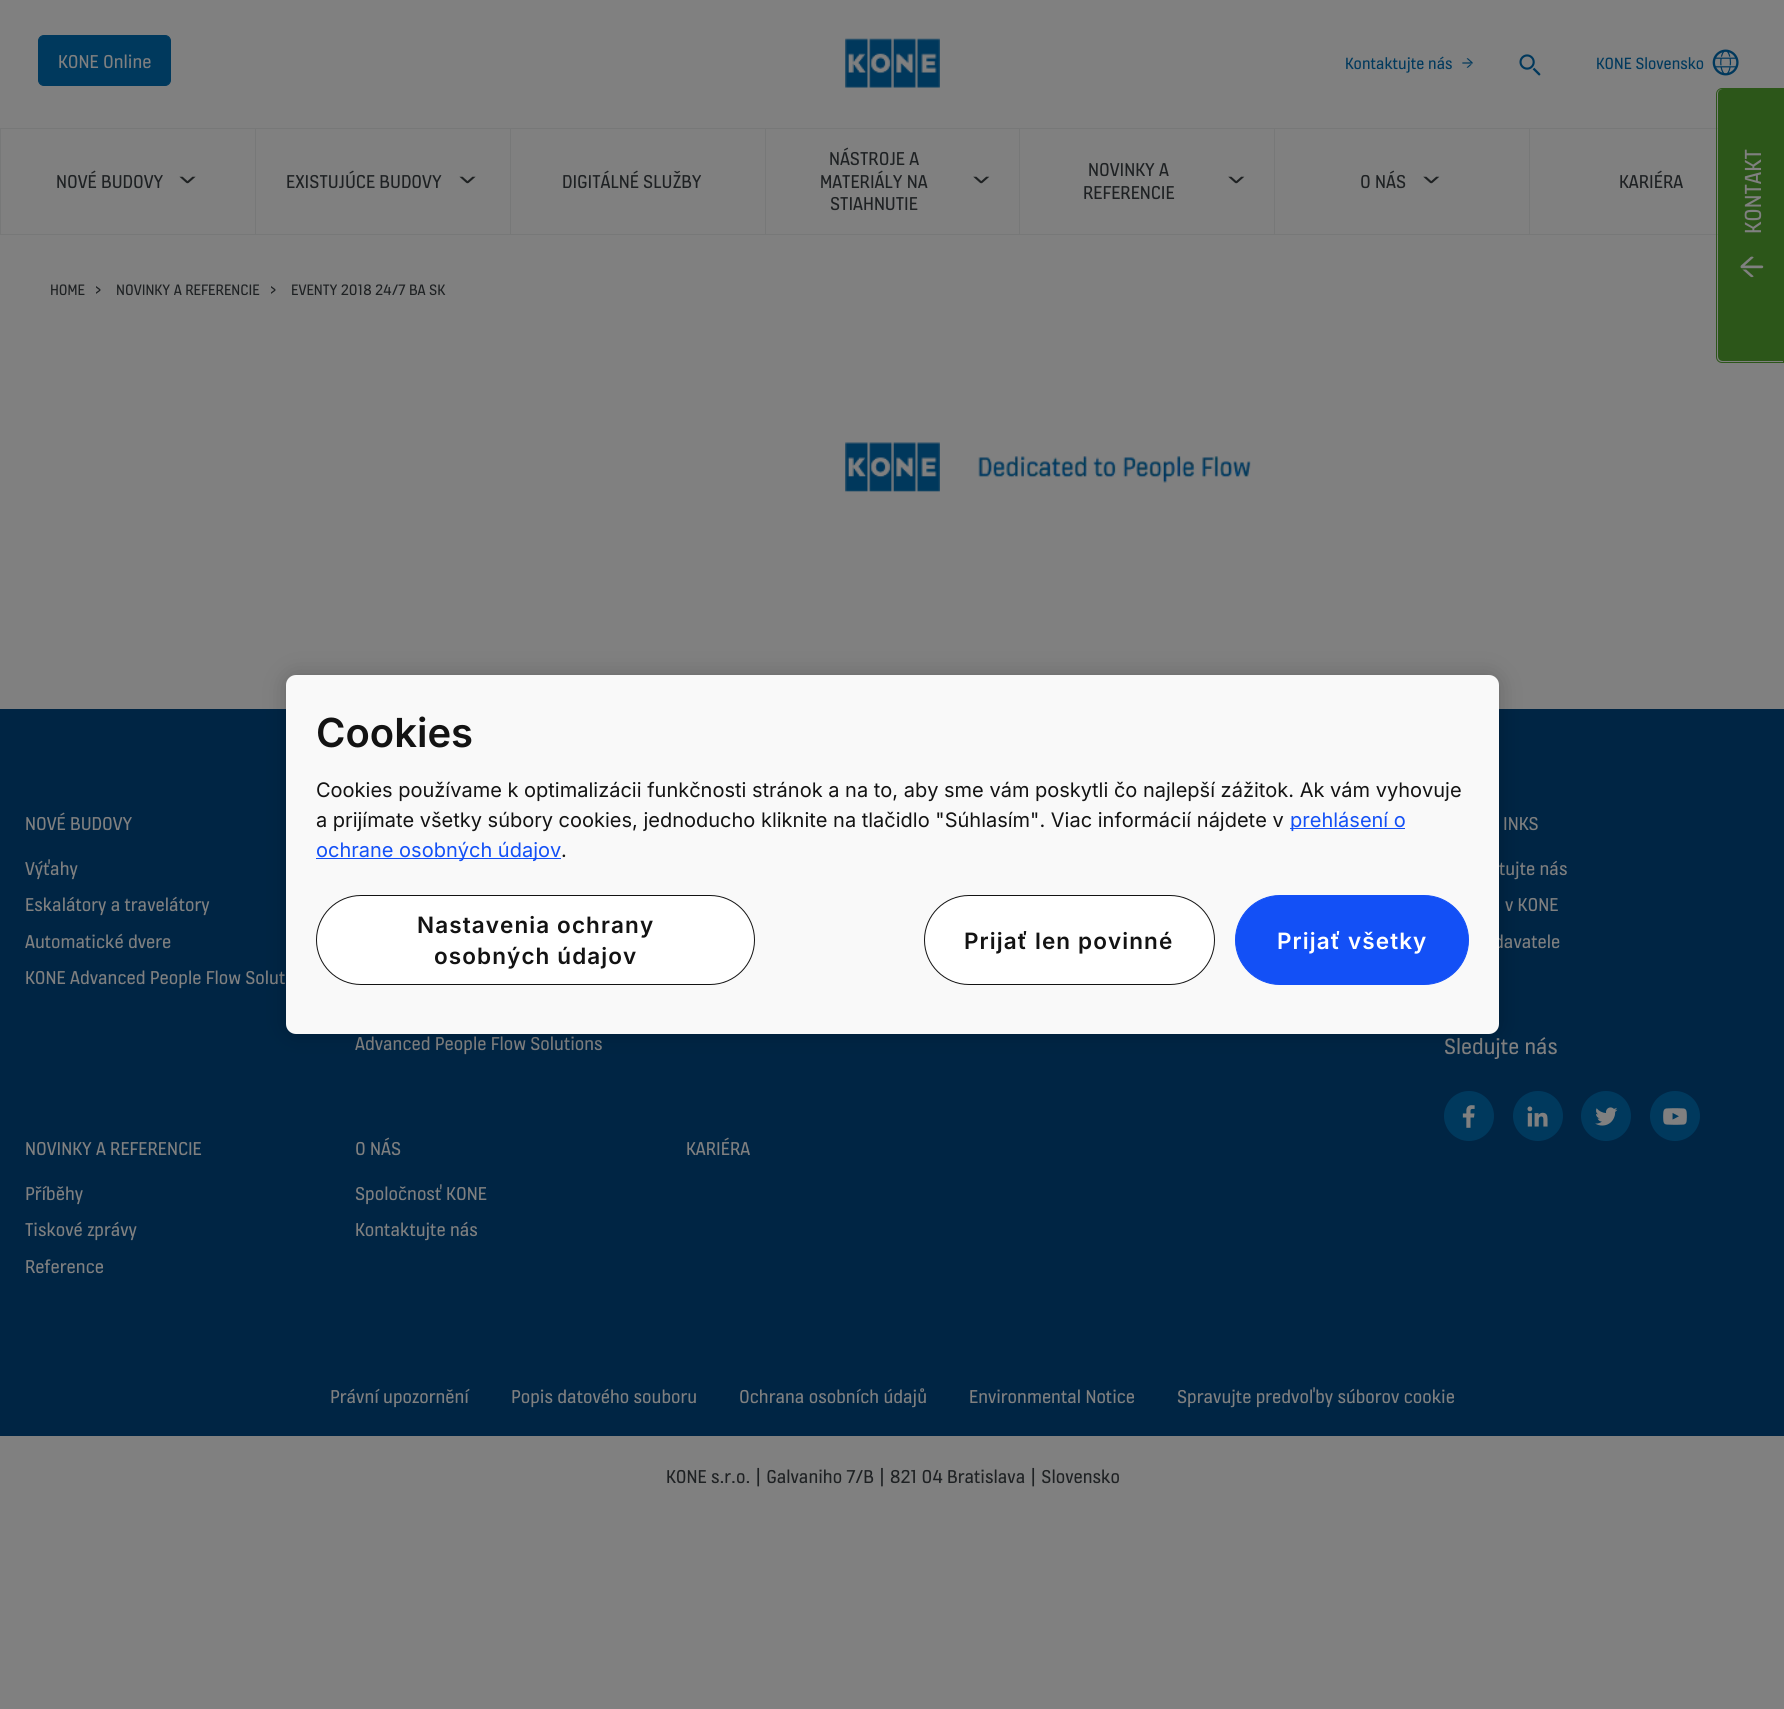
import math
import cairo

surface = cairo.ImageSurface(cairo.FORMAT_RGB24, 1784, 1709)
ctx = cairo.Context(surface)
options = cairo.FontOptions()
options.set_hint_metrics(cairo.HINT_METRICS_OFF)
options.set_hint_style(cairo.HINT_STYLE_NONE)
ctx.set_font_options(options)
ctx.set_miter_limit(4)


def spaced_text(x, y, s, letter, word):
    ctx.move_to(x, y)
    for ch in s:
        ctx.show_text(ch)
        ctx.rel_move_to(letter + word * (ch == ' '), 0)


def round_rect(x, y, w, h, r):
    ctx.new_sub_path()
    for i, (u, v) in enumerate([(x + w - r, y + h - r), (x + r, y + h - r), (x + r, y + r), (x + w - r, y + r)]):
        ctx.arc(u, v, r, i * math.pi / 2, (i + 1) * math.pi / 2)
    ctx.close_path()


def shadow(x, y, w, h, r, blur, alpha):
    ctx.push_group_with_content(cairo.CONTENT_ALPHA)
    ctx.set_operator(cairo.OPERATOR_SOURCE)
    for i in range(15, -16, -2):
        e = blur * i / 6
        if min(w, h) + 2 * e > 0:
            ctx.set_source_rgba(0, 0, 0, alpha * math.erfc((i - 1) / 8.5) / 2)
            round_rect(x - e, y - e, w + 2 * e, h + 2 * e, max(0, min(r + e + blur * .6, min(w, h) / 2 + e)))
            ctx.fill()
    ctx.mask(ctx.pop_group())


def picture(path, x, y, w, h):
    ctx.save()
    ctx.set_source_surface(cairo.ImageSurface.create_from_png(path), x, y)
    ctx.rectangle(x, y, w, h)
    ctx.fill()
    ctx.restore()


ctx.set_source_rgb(0.502, 0.502, 0.502)
ctx.paint()
ctx.set_source_rgb(0, 0.224, 0.365)
round_rect(38.5, 35.5, 132, 50, 5.5)
ctx.fill_preserve()
ctx.set_line_width(1)
ctx.stroke()
ctx.select_font_face("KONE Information")
ctx.set_font_size(20)
ctx.set_source_rgb(0.502, 0.502, 0.502)
ctx.move_to(58, 68)
ctx.show_text("KONE Online")
picture("img1.png", 845, 38, 95, 50)
ctx.set_font_size(17.5)
ctx.set_source_rgb(0, 0.224, 0.365)
ctx.move_to(1345, 69)
ctx.show_text("Kontaktujte nás")
picture("img2.png", 1462, 58, 11, 10)
picture("img3.png", 1519, 54, 22, 22)
ctx.move_to(1596, 69)
ctx.show_text("KONE Slovensko")
picture("img4.png", 1712, 49, 27, 27)
ctx.set_source_rgb(0.467, 0.471, 0.471)
ctx.rectangle(0, 128, 1718, 1)
ctx.fill()
ctx.rectangle(255, 129, 1, 106)
ctx.fill()
ctx.rectangle(0, 234, 256, 1)
ctx.fill()
ctx.rectangle(0, 129, 1, 106)
ctx.fill()
ctx.set_font_size(20)
ctx.set_source_rgb(0.118, 0.129, 0.137)
ctx.move_to(56, 188)
ctx.show_text("NOVÉ BUDOVY")
picture("img5.png", 179, 176, 17, 8)
ctx.set_source_rgb(0.467, 0.471, 0.471)
ctx.rectangle(510, 129, 1, 106)
ctx.fill()
ctx.rectangle(256, 234, 255, 1)
ctx.fill()
ctx.set_source_rgb(0.118, 0.129, 0.137)
ctx.move_to(286, 188)
ctx.show_text("EXISTUJÚCE BUDOVY")
picture("img5.png", 459, 176, 17, 8)
ctx.set_source_rgb(0.467, 0.471, 0.471)
ctx.rectangle(765, 129, 1, 106)
ctx.fill()
ctx.rectangle(511, 234, 255, 1)
ctx.fill()
ctx.set_source_rgb(0.118, 0.129, 0.137)
ctx.move_to(562, 188)
ctx.show_text("DIGITÁLNÉ SLUŽBY")
ctx.set_source_rgb(0.467, 0.471, 0.471)
ctx.rectangle(1019, 129, 1, 106)
ctx.fill()
ctx.rectangle(766, 234, 254, 1)
ctx.fill()
ctx.set_source_rgb(0.118, 0.129, 0.137)
ctx.move_to(829, 165)
ctx.show_text("NÁSTROJE A")
ctx.move_to(820, 188)
ctx.show_text("MATERIÁLY NA")
ctx.move_to(830, 210)
ctx.show_text("STIAHNUTIE")
picture("img6.png", 973, 176, 17, 8)
ctx.set_source_rgb(0.467, 0.471, 0.471)
ctx.rectangle(1274, 129, 1, 106)
ctx.fill()
ctx.rectangle(1020, 234, 255, 1)
ctx.fill()
ctx.set_source_rgb(0.118, 0.129, 0.137)
ctx.move_to(1088, 176)
ctx.show_text("NOVINKY A")
ctx.move_to(1083, 199)
ctx.show_text("REFERENCIE")
picture("img6.png", 1228, 176, 17, 8)
ctx.set_source_rgb(0.467, 0.471, 0.471)
ctx.rectangle(1529, 129, 1, 106)
ctx.fill()
ctx.rectangle(1275, 234, 443, 1)
ctx.fill()
ctx.set_source_rgb(0.118, 0.129, 0.137)
ctx.move_to(1360, 188)
ctx.show_text("O NÁS")
picture("img6.png", 1423, 176, 17, 8)
ctx.move_to(1619, 188)
ctx.show_text("KARIÉRA")
ctx.set_font_size(16.25)
ctx.move_to(50, 295)
ctx.show_text("HOME")
ctx.move_to(95, 295)
ctx.show_text(">")
ctx.move_to(116, 295)
ctx.show_text("NOVINKY A REFERENCIE")
ctx.move_to(270, 295)
ctx.show_text(">")
ctx.move_to(291, 295)
ctx.show_text("EVENTY 2018 24/7 BA SK")
picture("img7.png", 845, 442, 95, 50)
picture("img8.png", 978, 456, 273, 27)
ctx.set_source_rgb(0, 0.145, 0.267)
ctx.rectangle(0, 709, 1784, 727)
ctx.fill()
ctx.set_font_size(20)
ctx.set_source_rgb(0.502, 0.502, 0.502)
ctx.move_to(25, 830)
ctx.show_text("NOVÉ BUDOVY")
ctx.move_to(25, 875)
ctx.show_text("Výťahy")
ctx.move_to(25, 911)
ctx.show_text("Eskalátory a travelátory")
ctx.move_to(25, 948)
ctx.show_text("Automatické dvere")
ctx.move_to(25, 984)
ctx.show_text("KONE Advanced People Flow Solut")
ctx.move_to(355, 1050)
ctx.show_text("Advanced People Flow Solutions")
ctx.move_to(25, 1155)
ctx.show_text("NOVINKY A REFERENCIE")
ctx.move_to(25, 1200)
ctx.show_text("Příběhy")
ctx.move_to(25, 1236)
ctx.show_text("Tiskové zprávy")
ctx.move_to(25, 1273)
ctx.show_text("Reference")
ctx.move_to(355, 1155)
ctx.show_text("O NÁS")
ctx.move_to(355, 1200)
ctx.show_text("Spoločnosť KONE")
ctx.move_to(355, 1236)
ctx.show_text("Kontaktujte nás")
ctx.move_to(686, 1155)
ctx.show_text("KARIÉRA")
ctx.move_to(1503, 830)
ctx.show_text("INKS")
ctx.move_to(1499, 875)
ctx.show_text("tujte nás")
ctx.move_to(1505, 911)
ctx.show_text("v KONE")
ctx.move_to(1494, 948)
ctx.show_text("davatele")
ctx.set_font_size(23.75)
ctx.move_to(1444, 1054)
ctx.show_text("Sledujte nás")
ctx.set_source_rgb(0, 0.224, 0.365)
ctx.new_path()
ctx.arc(1469, 1116, 25, 0, 2 * math.pi)
ctx.fill()
picture("img9.png", 1462, 1105, 13, 23)
ctx.arc(1538, 1116, 25, 0, 2 * math.pi)
ctx.fill()
picture("img10.png", 1527, 1106, 21, 21)
ctx.arc(1606, 1116, 25, 0, 2 * math.pi)
ctx.fill()
picture("img11.png", 1595, 1107, 23, 19)
ctx.arc(1675, 1116, 25, 0, 2 * math.pi)
ctx.fill()
picture("img12.png", 1663, 1108, 24, 17)
ctx.set_font_size(20)
ctx.set_source_rgb(0.502, 0.502, 0.502)
ctx.move_to(330, 1403)
ctx.show_text("Právní upozornění")
ctx.move_to(511, 1403)
ctx.show_text("Popis datového souboru")
ctx.move_to(739, 1403)
ctx.show_text("Ochrana osobních údajů")
ctx.move_to(969, 1403)
ctx.show_text("Environmental Notice")
ctx.move_to(1177, 1403)
ctx.show_text("Spravujte predvoľby súborov cookie")
ctx.set_source_rgb(0.118, 0.129, 0.137)
ctx.move_to(666, 1483)
ctx.show_text("KONE s.r.o. | Galvaniho 7/B | 821 04 Bratislava | Slovensko")
ctx.set_source_rgb(0.173, 0.337, 0.098)
ctx.new_path()
ctx.move_to(1723, 89)
ctx.line_to(1783, 89)
ctx.line_to(1783, 361)
ctx.line_to(1723, 361)
ctx.curve_to(1720, 361, 1718, 359, 1718, 356)
ctx.line_to(1718, 94)
ctx.curve_to(1718, 91, 1720, 89, 1723, 89)
ctx.close_path()
ctx.fill()
ctx.new_path()
ctx.move_to(1722, 88.5)
ctx.line_to(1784.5, 88.5)
ctx.line_to(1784.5, 362.5)
ctx.line_to(1722, 362.5)
ctx.curve_to(1719, 362.5, 1716.5, 360, 1716.5, 357)
ctx.line_to(1716.5, 94)
ctx.curve_to(1716.5, 91, 1719, 88.5, 1722, 88.5)
ctx.close_path()
ctx.stroke()
ctx.rectangle(1783, 88, 1, 275)
ctx.fill()
ctx.set_font_size(25)
ctx.set_source_rgb(0.502, 0.502, 0.502)
ctx.save()
ctx.translate(1761, 234)
ctx.rotate(-90 * math.pi / 180)
ctx.move_to(0, 0)
ctx.show_text("KONTAKT")
ctx.restore()
picture("img13.png", 1740, 256, 24, 22)
ctx.set_source_rgb(0, 0, 0)
shadow(286, 675, 1213, 359, 10, 11, 0.2)
ctx.set_source_rgb(0.973, 0.973, 0.973)
round_rect(286, 675, 1213, 359, 10)
ctx.fill()
ctx.select_font_face("Inter SemiBold")
ctx.set_font_size(40)
ctx.set_source_rgb(0.078, 0.078, 0.078)
ctx.move_to(316, 747)
ctx.show_text("Cookies")
ctx.select_font_face("Inter")
ctx.set_font_size(20)
ctx.move_to(316, 797)
ctx.show_text("Cookies používame k optimalizácii funkčnosti stránok a na to, aby sme vám poskytli čo najlepší zážitok. Ak vám vyhovuje")
ctx.move_to(316, 827)
ctx.show_text("a prijímate všetky súbory cookies, jednoducho kliknite na tlačidlo \"Súhlasím\". Viac informácií nájdete v")
ctx.set_source_rgb(0.078, 0.314, 0.961)
ctx.rectangle(1290, 828, 115, 1)
ctx.fill()
ctx.move_to(1290, 827)
ctx.show_text("prehlásení o")
ctx.rectangle(316, 858, 245, 1)
ctx.fill()
ctx.move_to(316, 857)
ctx.show_text("ochrane osobných údajov")
ctx.set_source_rgb(0.078, 0.078, 0.078)
ctx.move_to(561, 857)
ctx.show_text(".")
ctx.set_source_rgb(1, 1, 1)
round_rect(316.5, 895.5, 438, 89, 44.5)
ctx.fill_preserve()
ctx.set_source_rgb(0.078, 0.078, 0.078)
ctx.stroke()
ctx.select_font_face("Inter SemiBold")
ctx.set_font_size(22.5)
spaced_text(417, 933, "Nastavenia ochrany", 1.1, 0)
spaced_text(434, 964, "osobných údajov", 1.1, 0)
ctx.set_source_rgb(1, 1, 1)
round_rect(924.5, 895.5, 290, 89, 44.5)
ctx.fill_preserve()
ctx.set_source_rgb(0.078, 0.078, 0.078)
ctx.stroke()
spaced_text(964, 949, "Prijať len povinné", 1.1, 0)
ctx.set_source_rgb(0.078, 0.314, 0.961)
round_rect(1235.5, 895.5, 233, 89, 44.5)
ctx.fill_preserve()
ctx.stroke()
ctx.set_source_rgb(1, 1, 1)
spaced_text(1277, 949, "Prijať všetky", 1.1, 0)
surface.write_to_png("page.png")
